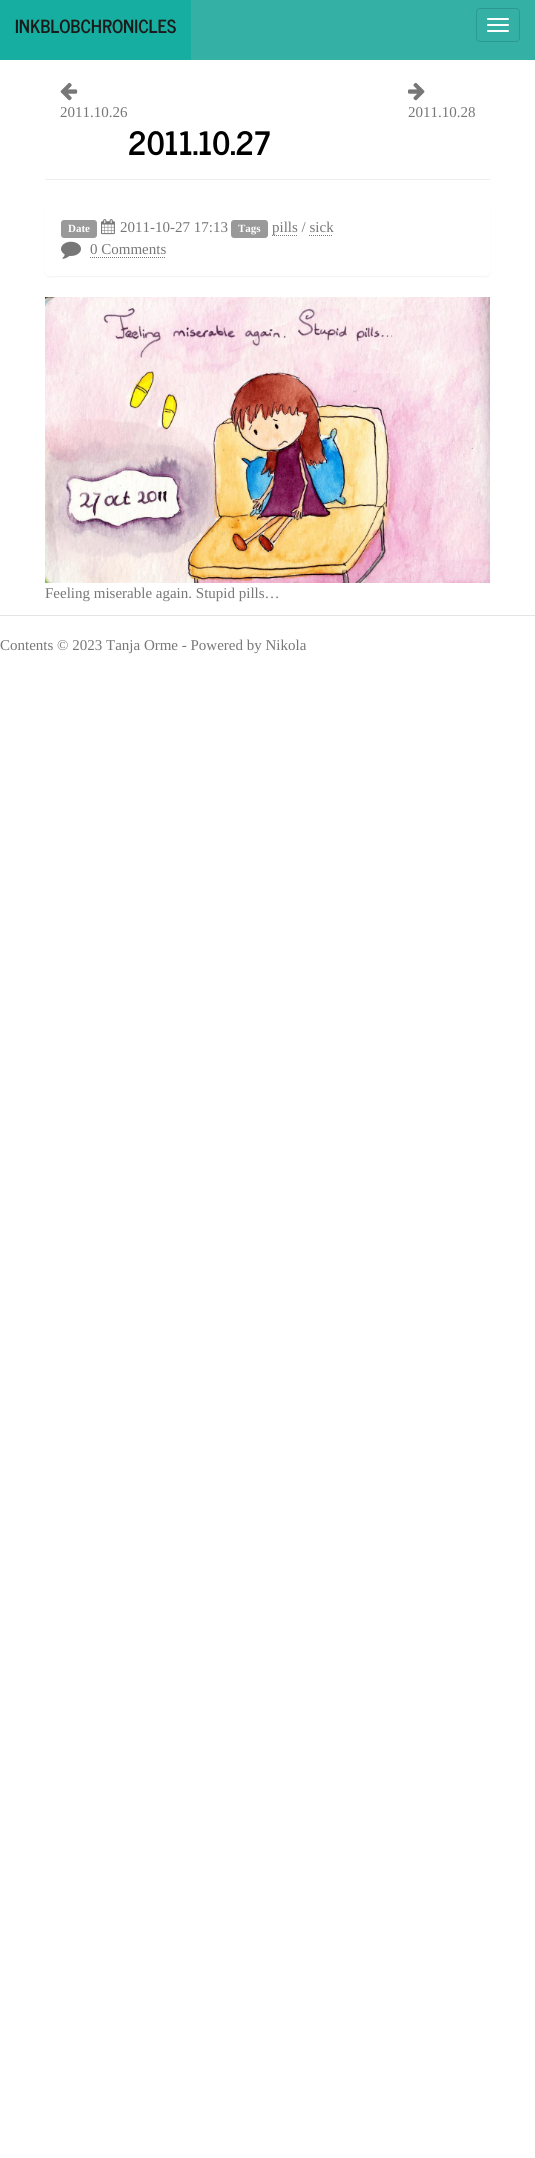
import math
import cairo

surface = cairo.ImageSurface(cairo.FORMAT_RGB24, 535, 2158)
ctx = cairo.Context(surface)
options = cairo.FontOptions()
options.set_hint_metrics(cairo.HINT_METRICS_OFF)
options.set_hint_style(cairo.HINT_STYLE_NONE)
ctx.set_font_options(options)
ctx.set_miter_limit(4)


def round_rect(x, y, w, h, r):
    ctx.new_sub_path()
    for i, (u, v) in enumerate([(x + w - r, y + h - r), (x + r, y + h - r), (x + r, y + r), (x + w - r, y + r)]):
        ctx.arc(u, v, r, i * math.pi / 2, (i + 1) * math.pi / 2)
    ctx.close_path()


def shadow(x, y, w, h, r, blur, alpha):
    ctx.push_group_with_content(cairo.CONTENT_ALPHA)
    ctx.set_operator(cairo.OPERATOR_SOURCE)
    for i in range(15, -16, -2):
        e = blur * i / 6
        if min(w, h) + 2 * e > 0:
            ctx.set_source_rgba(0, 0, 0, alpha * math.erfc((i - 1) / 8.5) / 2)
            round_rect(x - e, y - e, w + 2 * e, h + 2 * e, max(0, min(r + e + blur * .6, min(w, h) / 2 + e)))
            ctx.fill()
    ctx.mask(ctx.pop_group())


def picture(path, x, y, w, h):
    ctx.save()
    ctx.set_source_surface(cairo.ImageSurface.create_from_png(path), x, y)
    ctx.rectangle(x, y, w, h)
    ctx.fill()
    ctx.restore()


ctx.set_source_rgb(1, 1, 1)
ctx.paint()
ctx.set_source_rgb(0.204, 0.69, 0.647)
ctx.rectangle(191, 0, 344, 60)
ctx.fill()
ctx.set_source_rgb(0.086, 0.682, 0.627)
ctx.rectangle(0, 0, 191, 60)
ctx.fill()
ctx.select_font_face("News Cycle", cairo.FONT_SLANT_NORMAL, cairo.FONT_WEIGHT_BOLD)
ctx.set_font_size(18)
ctx.set_source_rgb(0.11, 0.106, 0.106)
ctx.move_to(15, 33)
ctx.show_text("INKBLOBCHRONICLES")
round_rect(476.5, 8.5, 43, 33, 3.5)
ctx.set_source_rgb(0.173, 0.6, 0.557)
ctx.set_line_width(1)
ctx.stroke()
ctx.set_source_rgb(1, 1, 1)
round_rect(487, 18, 22, 2, 1)
ctx.fill()
round_rect(487, 24, 22, 2, 1)
ctx.fill()
round_rect(487, 30, 22, 2, 1)
ctx.fill()
picture("img1.png", 60, 82, 18, 19)
ctx.select_font_face("Liberation Serif")
ctx.set_font_size(15)
ctx.set_source_rgb(0.467, 0.467, 0.467)
ctx.move_to(60, 117)
ctx.show_text("2011.10.26")
picture("img2.png", 408, 82, 17, 19)
ctx.move_to(408, 117)
ctx.show_text("2011.10.28")
ctx.set_source_rgb(0.933, 0.933, 0.933)
ctx.rectangle(45, 179, 445, 1)
ctx.fill()
ctx.select_font_face("News Cycle", cairo.FONT_SLANT_NORMAL, cairo.FONT_WEIGHT_BOLD)
ctx.set_font_size(32)
ctx.set_source_rgb(0, 0, 0)
ctx.move_to(128, 155)
ctx.show_text("2011.10.27")
ctx.set_source_rgb(0, 0, 0)
shadow(45, 202, 445, 75, 4, 0.5, 0.05)
ctx.set_source_rgb(1, 1, 1)
round_rect(45, 201, 445, 75, 4)
ctx.fill()
ctx.set_source_rgb(0.6, 0.6, 0.6)
round_rect(61, 220, 36, 18, 3)
ctx.fill()
ctx.select_font_face("Liberation Serif", cairo.FONT_SLANT_NORMAL, cairo.FONT_WEIGHT_BOLD)
ctx.set_font_size(11)
ctx.set_source_rgb(1, 1, 1)
ctx.move_to(68, 232)
ctx.show_text("Date")
picture("img3.png", 101, 219, 14, 16)
ctx.select_font_face("Liberation Serif")
ctx.set_font_size(15)
ctx.set_source_rgb(0.467, 0.467, 0.467)
ctx.move_to(120, 232)
ctx.show_text("2011-10-27 17:13")
ctx.set_source_rgb(0.6, 0.6, 0.6)
round_rect(231, 220, 37, 18, 3)
ctx.fill()
ctx.select_font_face("Liberation Serif", cairo.FONT_SLANT_NORMAL, cairo.FONT_WEIGHT_BOLD)
ctx.set_font_size(11)
ctx.set_source_rgb(1, 1, 1)
ctx.move_to(238, 232)
ctx.show_text("Tags")
ctx.new_path()
ctx.move_to(272, 235.5)
ctx.line_to(298, 235.5)
ctx.set_source_rgb(0.467, 0.467, 0.467)
ctx.set_dash([1, 1])
ctx.stroke()
ctx.select_font_face("Liberation Serif")
ctx.set_font_size(15)
ctx.move_to(272, 232)
ctx.show_text("pills / sick")
ctx.new_path()
ctx.move_to(309, 235.5)
ctx.line_to(333, 235.5)
ctx.stroke()
picture("img4.png", 61, 241, 20, 18)
ctx.move_to(90, 254)
ctx.show_text("0 Comments")
ctx.new_path()
ctx.move_to(90, 257.5)
ctx.line_to(166, 257.5)
ctx.stroke()
picture("img5.png", 45, 297, 445, 286)
ctx.move_to(45, 598)
ctx.show_text("Feeling miserable again. Stupid pills…")
ctx.set_source_rgb(0.898, 0.898, 0.898)
ctx.rectangle(0, 615, 535, 1)
ctx.fill()
ctx.set_source_rgb(0.467, 0.467, 0.467)
ctx.move_to(0, 650)
ctx.show_text("Contents © 2023 Tanja Orme - Powered by Nikola")
surface.write_to_png("page.png")
